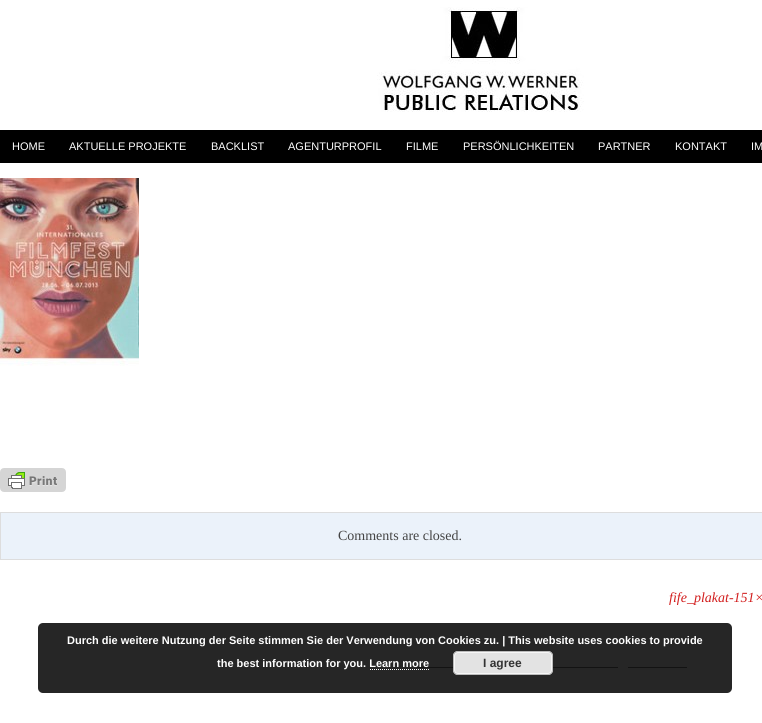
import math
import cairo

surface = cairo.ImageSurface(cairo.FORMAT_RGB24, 762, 723)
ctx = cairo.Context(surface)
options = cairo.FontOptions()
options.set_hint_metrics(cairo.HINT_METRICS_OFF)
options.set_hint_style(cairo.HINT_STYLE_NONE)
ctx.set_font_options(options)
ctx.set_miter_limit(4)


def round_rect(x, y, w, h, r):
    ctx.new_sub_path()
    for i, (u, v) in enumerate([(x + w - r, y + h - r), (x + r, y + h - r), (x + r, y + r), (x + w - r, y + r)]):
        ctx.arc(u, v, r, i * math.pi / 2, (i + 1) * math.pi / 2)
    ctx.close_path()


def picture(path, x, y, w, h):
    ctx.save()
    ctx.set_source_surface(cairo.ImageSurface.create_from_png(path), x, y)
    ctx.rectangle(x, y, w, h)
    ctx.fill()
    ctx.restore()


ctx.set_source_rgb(1, 1, 1)
ctx.paint()
picture("img1.png", 377, 7, 207, 105)
ctx.set_source_rgb(0, 0, 0)
ctx.rectangle(0, 130, 762, 33)
ctx.fill()
ctx.select_font_face("Liberation Sans")
ctx.set_font_size(11)
ctx.set_source_rgb(1, 1, 1)
ctx.move_to(12, 150)
ctx.show_text("HOME")
ctx.move_to(69, 150)
ctx.show_text("AKTUELLE PROJEKTE")
ctx.move_to(211, 150)
ctx.show_text("BACKLIST")
ctx.move_to(288, 150)
ctx.show_text("AGENTURPROFIL")
ctx.move_to(406, 150)
ctx.show_text("FILME")
ctx.move_to(463, 150)
ctx.show_text("PERSÖNLICHKEITEN")
ctx.move_to(598, 150)
ctx.show_text("PARTNER")
ctx.move_to(675, 150)
ctx.show_text("KONTAKT")
ctx.move_to(751, 150)
ctx.show_text("IM")
picture("img2.png", 0, 178, 139, 188)
picture("img3.png", 0, 468, 66, 24)
ctx.set_source_rgb(0.918, 0.949, 0.98)
ctx.rectangle(0.5, 512.5, 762, 47)
ctx.fill_preserve()
ctx.set_source_rgb(0.867, 0.867, 0.867)
ctx.set_line_width(1)
ctx.stroke()
ctx.select_font_face("Liberation Serif")
ctx.set_font_size(14)
ctx.set_source_rgb(0.267, 0.267, 0.267)
ctx.move_to(338, 540)
ctx.show_text("Comments are closed.")
ctx.select_font_face("Liberation Serif", cairo.FONT_SLANT_ITALIC)
ctx.set_source_rgb(0.824, 0.118, 0.118)
ctx.move_to(669, 602)
ctx.show_text("fife_plakat-151×")
ctx.set_source_rgb(0.502, 0.502, 0.502)
ctx.rectangle(417, 667, 36, 1)
ctx.fill()
ctx.rectangle(553, 667, 65, 1)
ctx.fill()
ctx.rectangle(628, 667, 59, 1)
ctx.fill()
ctx.set_source_rgba(0, 0, 0, 0.85)
round_rect(38, 623, 694, 70, 5)
ctx.fill()
ctx.select_font_face("Liberation Sans", cairo.FONT_SLANT_NORMAL, cairo.FONT_WEIGHT_BOLD)
ctx.set_font_size(11)
ctx.set_source_rgb(1, 1, 1)
ctx.move_to(67, 644)
ctx.show_text("Durch die weitere Nutzung der Seite stimmen Sie der Verwendung von Cookies zu. | This website uses cookies to provide")
ctx.move_to(217, 667)
ctx.show_text("the best information for you. Learn more")
ctx.set_source_rgb(0.89, 0.89, 0.89)
round_rect(453, 651, 100, 24, 5)
ctx.fill()
round_rect(454.5, 652.5, 97, 21, 3.5)
ctx.set_source_rgb(0.965, 0.965, 0.965)
ctx.stroke()
round_rect(453.5, 651.5, 99, 23, 4.5)
ctx.set_source_rgb(0.733, 0.733, 0.733)
ctx.stroke()
ctx.set_font_size(12)
ctx.set_source_rgb(0.2, 0.2, 0.2)
ctx.move_to(483, 667)
ctx.show_text("I agree")
ctx.new_path()
ctx.move_to(370, 669.5)
ctx.line_to(430, 669.5)
ctx.set_source_rgb(1, 1, 1)
ctx.set_dash([1, 1])
ctx.stroke()
surface.write_to_png("page.png")
